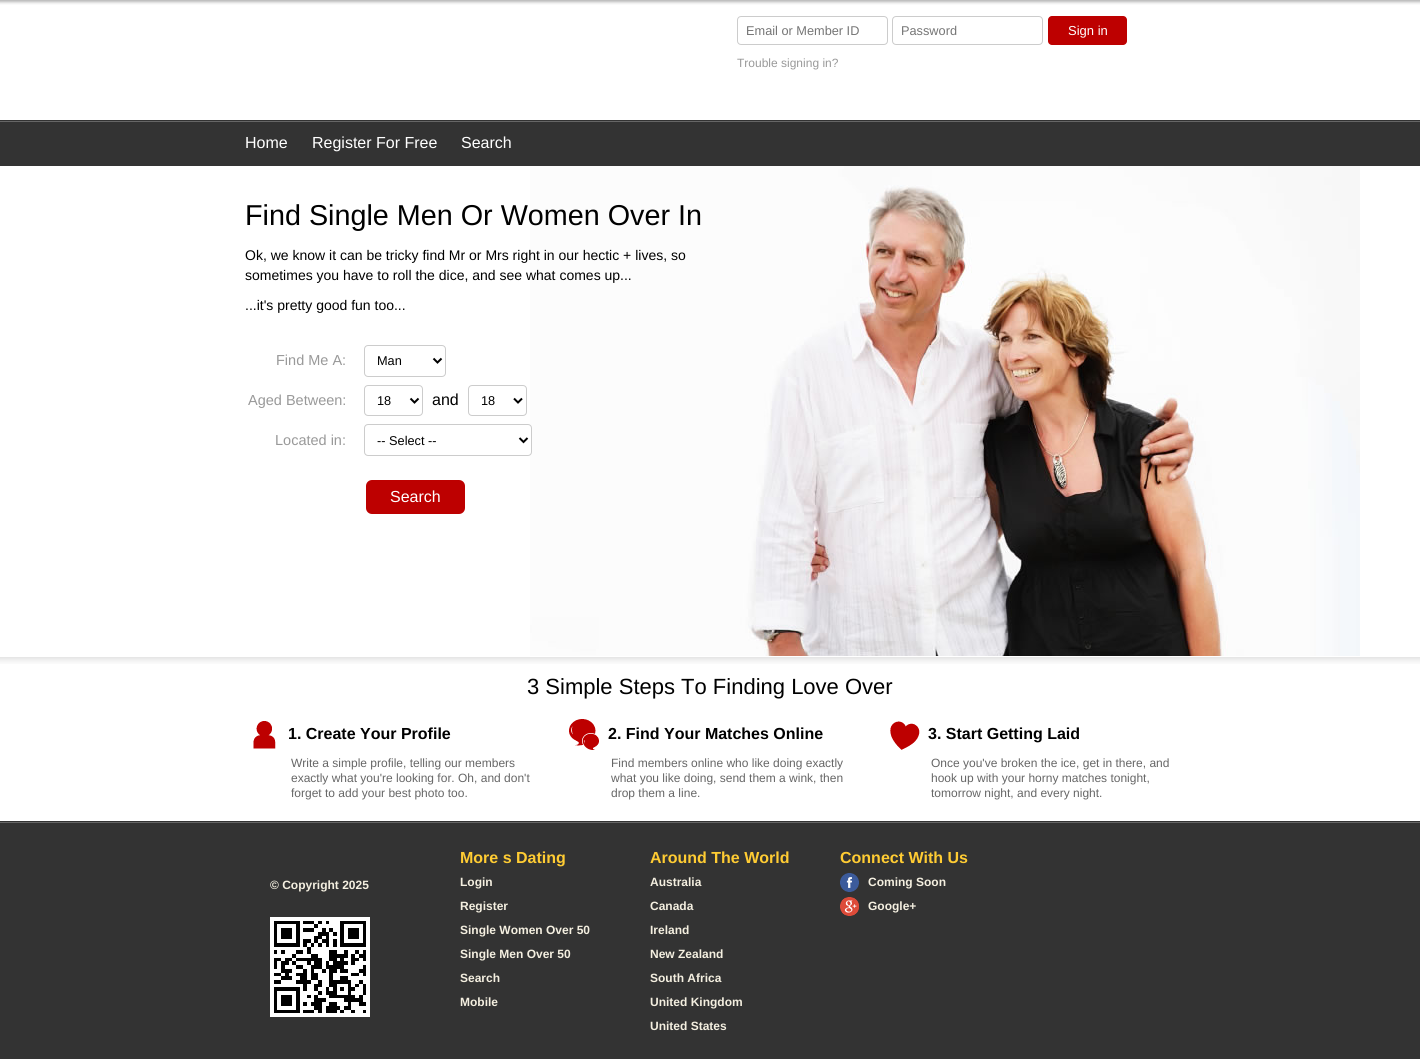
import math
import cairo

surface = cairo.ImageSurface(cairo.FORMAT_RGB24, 1420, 1059)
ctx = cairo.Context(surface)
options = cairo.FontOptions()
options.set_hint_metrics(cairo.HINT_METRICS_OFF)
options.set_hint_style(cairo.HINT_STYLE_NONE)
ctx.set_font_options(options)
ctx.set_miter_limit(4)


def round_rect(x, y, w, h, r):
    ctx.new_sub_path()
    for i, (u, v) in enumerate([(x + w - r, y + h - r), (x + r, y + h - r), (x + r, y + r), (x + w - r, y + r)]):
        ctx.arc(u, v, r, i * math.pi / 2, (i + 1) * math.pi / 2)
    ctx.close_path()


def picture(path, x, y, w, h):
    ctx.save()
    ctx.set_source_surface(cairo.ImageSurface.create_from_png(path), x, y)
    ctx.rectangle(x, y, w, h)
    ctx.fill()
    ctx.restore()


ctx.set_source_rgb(1, 1, 1)
ctx.paint()
picture("img1.png", 0, 0, 1420, 5)
round_rect(737.5, 16.5, 150, 28, 3.5)
ctx.set_source_rgb(0.8, 0.8, 0.8)
ctx.set_line_width(1)
ctx.stroke()
ctx.select_font_face("Liberation Sans")
ctx.set_font_size(12.75)
ctx.set_source_rgb(0.459, 0.459, 0.459)
ctx.move_to(746, 35)
ctx.show_text("Email or Member ID")
round_rect(892.5, 16.5, 150, 28, 3.5)
ctx.set_source_rgb(0.8, 0.8, 0.8)
ctx.stroke()
ctx.set_source_rgb(0.459, 0.459, 0.459)
ctx.move_to(901, 35)
ctx.show_text("Password")
ctx.set_source_rgb(0.741, 0, 0)
round_rect(1048, 16, 79, 29, 4)
ctx.fill()
ctx.set_font_size(13)
ctx.set_source_rgb(1, 1, 1)
ctx.move_to(1068, 35)
ctx.show_text("Sign in")
ctx.set_font_size(12)
ctx.set_source_rgb(0.6, 0.6, 0.6)
ctx.move_to(737, 67)
ctx.show_text("Trouble signing in?")
ctx.set_source_rgb(0.2, 0.2, 0.2)
ctx.rectangle(0, 120, 1420, 46)
ctx.fill()
ctx.set_source_rgb(0.4, 0.4, 0.4)
ctx.rectangle(0, 121, 1420, 1)
ctx.fill()
ctx.set_font_size(16)
ctx.set_source_rgb(1, 1, 1)
ctx.move_to(245, 148)
ctx.show_text("Home")
ctx.move_to(312, 148)
ctx.show_text("Register For Free")
ctx.move_to(461, 148)
ctx.show_text("Search")
picture("img2.png", 530, 166, 830, 490)
ctx.set_font_size(28.75)
ctx.set_source_rgb(0, 0, 0)
ctx.move_to(245, 225)
ctx.show_text("Find Single Men Or Women Over In")
ctx.set_font_size(14)
ctx.move_to(245, 260)
ctx.show_text("Ok, we know it can be tricky find Mr or Mrs right in our hectic + lives, so")
ctx.move_to(245, 280)
ctx.show_text("sometimes you have to roll the dice, and see what comes up...")
ctx.move_to(245, 310)
ctx.show_text("...it's pretty good fun too...")
ctx.set_font_size(14.5)
ctx.set_source_rgb(0.6, 0.6, 0.6)
ctx.move_to(276, 365)
ctx.show_text("Find Me A:")
round_rect(364.5, 345.5, 81, 31, 3.5)
ctx.set_source_rgb(0.8, 0.8, 0.8)
ctx.stroke()
ctx.new_path()
ctx.move_to(433.5, 358.5)
ctx.line_to(437.5, 362.5)
ctx.line_to(441.5, 358.5)
ctx.set_source_rgb(0, 0, 0)
ctx.set_line_width(2)
ctx.stroke()
ctx.set_font_size(12.75)
ctx.move_to(377, 365)
ctx.show_text("Man")
ctx.set_font_size(14.5)
ctx.set_source_rgb(0.6, 0.6, 0.6)
ctx.move_to(248, 405)
ctx.show_text("Aged Between:")
round_rect(364.5, 385.5, 58, 30, 3.5)
ctx.set_source_rgb(0.8, 0.8, 0.8)
ctx.set_line_width(1)
ctx.stroke()
ctx.new_path()
ctx.move_to(410.5, 398.5)
ctx.line_to(414.5, 402.5)
ctx.line_to(418.5, 398.5)
ctx.set_source_rgb(0, 0, 0)
ctx.set_line_width(2)
ctx.stroke()
ctx.set_font_size(12.75)
ctx.move_to(377, 405)
ctx.show_text("18")
ctx.set_font_size(16)
ctx.move_to(432, 405)
ctx.show_text("and")
round_rect(468.5, 385.5, 58, 30, 3.5)
ctx.set_source_rgb(0.8, 0.8, 0.8)
ctx.set_line_width(1)
ctx.stroke()
ctx.new_path()
ctx.move_to(514, 398.5)
ctx.line_to(518, 402.5)
ctx.line_to(522, 398.5)
ctx.set_source_rgb(0, 0, 0)
ctx.set_line_width(2)
ctx.stroke()
ctx.set_font_size(12.75)
ctx.move_to(481, 405)
ctx.show_text("18")
ctx.set_font_size(14.5)
ctx.set_source_rgb(0.6, 0.6, 0.6)
ctx.move_to(275, 445)
ctx.show_text("Located in:")
ctx.set_source_rgb(1, 1, 1)
round_rect(364.5, 424.5, 167, 31, 3.5)
ctx.fill_preserve()
ctx.set_source_rgb(0.8, 0.8, 0.8)
ctx.set_line_width(1)
ctx.stroke()
ctx.new_path()
ctx.move_to(519.5, 438)
ctx.line_to(523.5, 442)
ctx.line_to(527.5, 438)
ctx.set_source_rgb(0, 0, 0)
ctx.set_line_width(2)
ctx.stroke()
ctx.set_font_size(12.75)
ctx.move_to(377, 445)
ctx.show_text("-- Select --")
ctx.set_source_rgb(0.741, 0, 0)
round_rect(366, 480, 99, 34, 6)
ctx.fill()
ctx.set_font_size(16)
ctx.set_source_rgb(1, 1, 1)
ctx.move_to(390, 502)
ctx.show_text("Search")
picture("img3.png", 0, 657, 1420, 7)
ctx.set_font_size(22)
ctx.set_source_rgb(0, 0, 0)
ctx.move_to(527, 694)
ctx.show_text("3 Simple Steps To Finding Love Over")
picture("img4.png", 253, 721, 23, 28)
ctx.select_font_face("Liberation Sans", cairo.FONT_SLANT_NORMAL, cairo.FONT_WEIGHT_BOLD)
ctx.set_font_size(16)
ctx.move_to(288, 739)
ctx.show_text("1. Create Your Profile")
ctx.select_font_face("Liberation Sans")
ctx.set_font_size(12)
ctx.set_source_rgb(0.4, 0.4, 0.4)
ctx.move_to(291, 767)
ctx.show_text("Write a simple profile, telling our members")
ctx.move_to(291, 782)
ctx.show_text("exactly what you're looking for. Oh, and don't")
ctx.move_to(291, 797)
ctx.show_text("forget to add your best photo too.")
picture("img5.png", 569, 719, 30, 31)
ctx.select_font_face("Liberation Sans", cairo.FONT_SLANT_NORMAL, cairo.FONT_WEIGHT_BOLD)
ctx.set_font_size(16)
ctx.set_source_rgb(0, 0, 0)
ctx.move_to(608, 739)
ctx.show_text("2. Find Your Matches Online")
ctx.select_font_face("Liberation Sans")
ctx.set_font_size(12)
ctx.set_source_rgb(0.4, 0.4, 0.4)
ctx.move_to(611, 767)
ctx.show_text("Find members online who like doing exactly")
ctx.move_to(611, 782)
ctx.show_text("what you like doing, send them a wink, then")
ctx.move_to(611, 797)
ctx.show_text("drop them a line.")
picture("img6.png", 890, 721, 30, 29)
ctx.select_font_face("Liberation Sans", cairo.FONT_SLANT_NORMAL, cairo.FONT_WEIGHT_BOLD)
ctx.set_font_size(16)
ctx.set_source_rgb(0, 0, 0)
ctx.move_to(928, 739)
ctx.show_text("3. Start Getting Laid")
ctx.select_font_face("Liberation Sans")
ctx.set_font_size(12)
ctx.set_source_rgb(0.4, 0.4, 0.4)
ctx.move_to(931, 767)
ctx.show_text("Once you've broken the ice, get in there, and")
ctx.move_to(931, 782)
ctx.show_text("hook up with your horny matches tonight,")
ctx.move_to(931, 797)
ctx.show_text("tomorrow night, and every night.")
ctx.set_source_rgb(0.2, 0.2, 0.2)
ctx.rectangle(0, 821, 1420, 238)
ctx.fill()
ctx.set_source_rgb(0.4, 0.4, 0.4)
ctx.rectangle(0, 822, 1420, 1)
ctx.fill()
ctx.select_font_face("Liberation Sans", cairo.FONT_SLANT_NORMAL, cairo.FONT_WEIGHT_BOLD)
ctx.set_source_rgb(0.957, 0.937, 0.878)
ctx.move_to(270, 889)
ctx.show_text("© Copyright 2025")
picture("img7.png", 270, 917, 100, 100)
ctx.set_font_size(16)
ctx.set_source_rgb(1, 0.8, 0.2)
ctx.move_to(460, 863)
ctx.show_text("More s Dating")
ctx.set_font_size(12)
ctx.set_source_rgb(0.957, 0.937, 0.878)
ctx.move_to(460, 886)
ctx.show_text("Login")
ctx.move_to(460, 910)
ctx.show_text("Register")
ctx.move_to(460, 934)
ctx.show_text("Single Women Over 50")
ctx.move_to(460, 958)
ctx.show_text("Single Men Over 50")
ctx.move_to(460, 982)
ctx.show_text("Search")
ctx.move_to(460, 1006)
ctx.show_text("Mobile")
ctx.set_font_size(16)
ctx.set_source_rgb(1, 0.8, 0.2)
ctx.move_to(650, 863)
ctx.show_text("Around The World")
ctx.set_font_size(12)
ctx.set_source_rgb(0.957, 0.937, 0.878)
ctx.move_to(650, 886)
ctx.show_text("Australia")
ctx.move_to(650, 910)
ctx.show_text("Canada")
ctx.move_to(650, 934)
ctx.show_text("Ireland")
ctx.move_to(650, 958)
ctx.show_text("New Zealand")
ctx.move_to(650, 982)
ctx.show_text("South Africa")
ctx.move_to(650, 1006)
ctx.show_text("United Kingdom")
ctx.move_to(650, 1030)
ctx.show_text("United States")
ctx.set_font_size(16)
ctx.set_source_rgb(1, 0.8, 0.2)
ctx.move_to(840, 863)
ctx.show_text("Connect With Us")
picture("img8.png", 840, 873, 19, 19)
ctx.set_font_size(12)
ctx.set_source_rgb(0.957, 0.937, 0.878)
ctx.move_to(868, 886)
ctx.show_text("Coming Soon")
picture("img9.png", 840, 897, 19, 19)
ctx.move_to(868, 910)
ctx.show_text("Google+")
surface.write_to_png("page.png")
